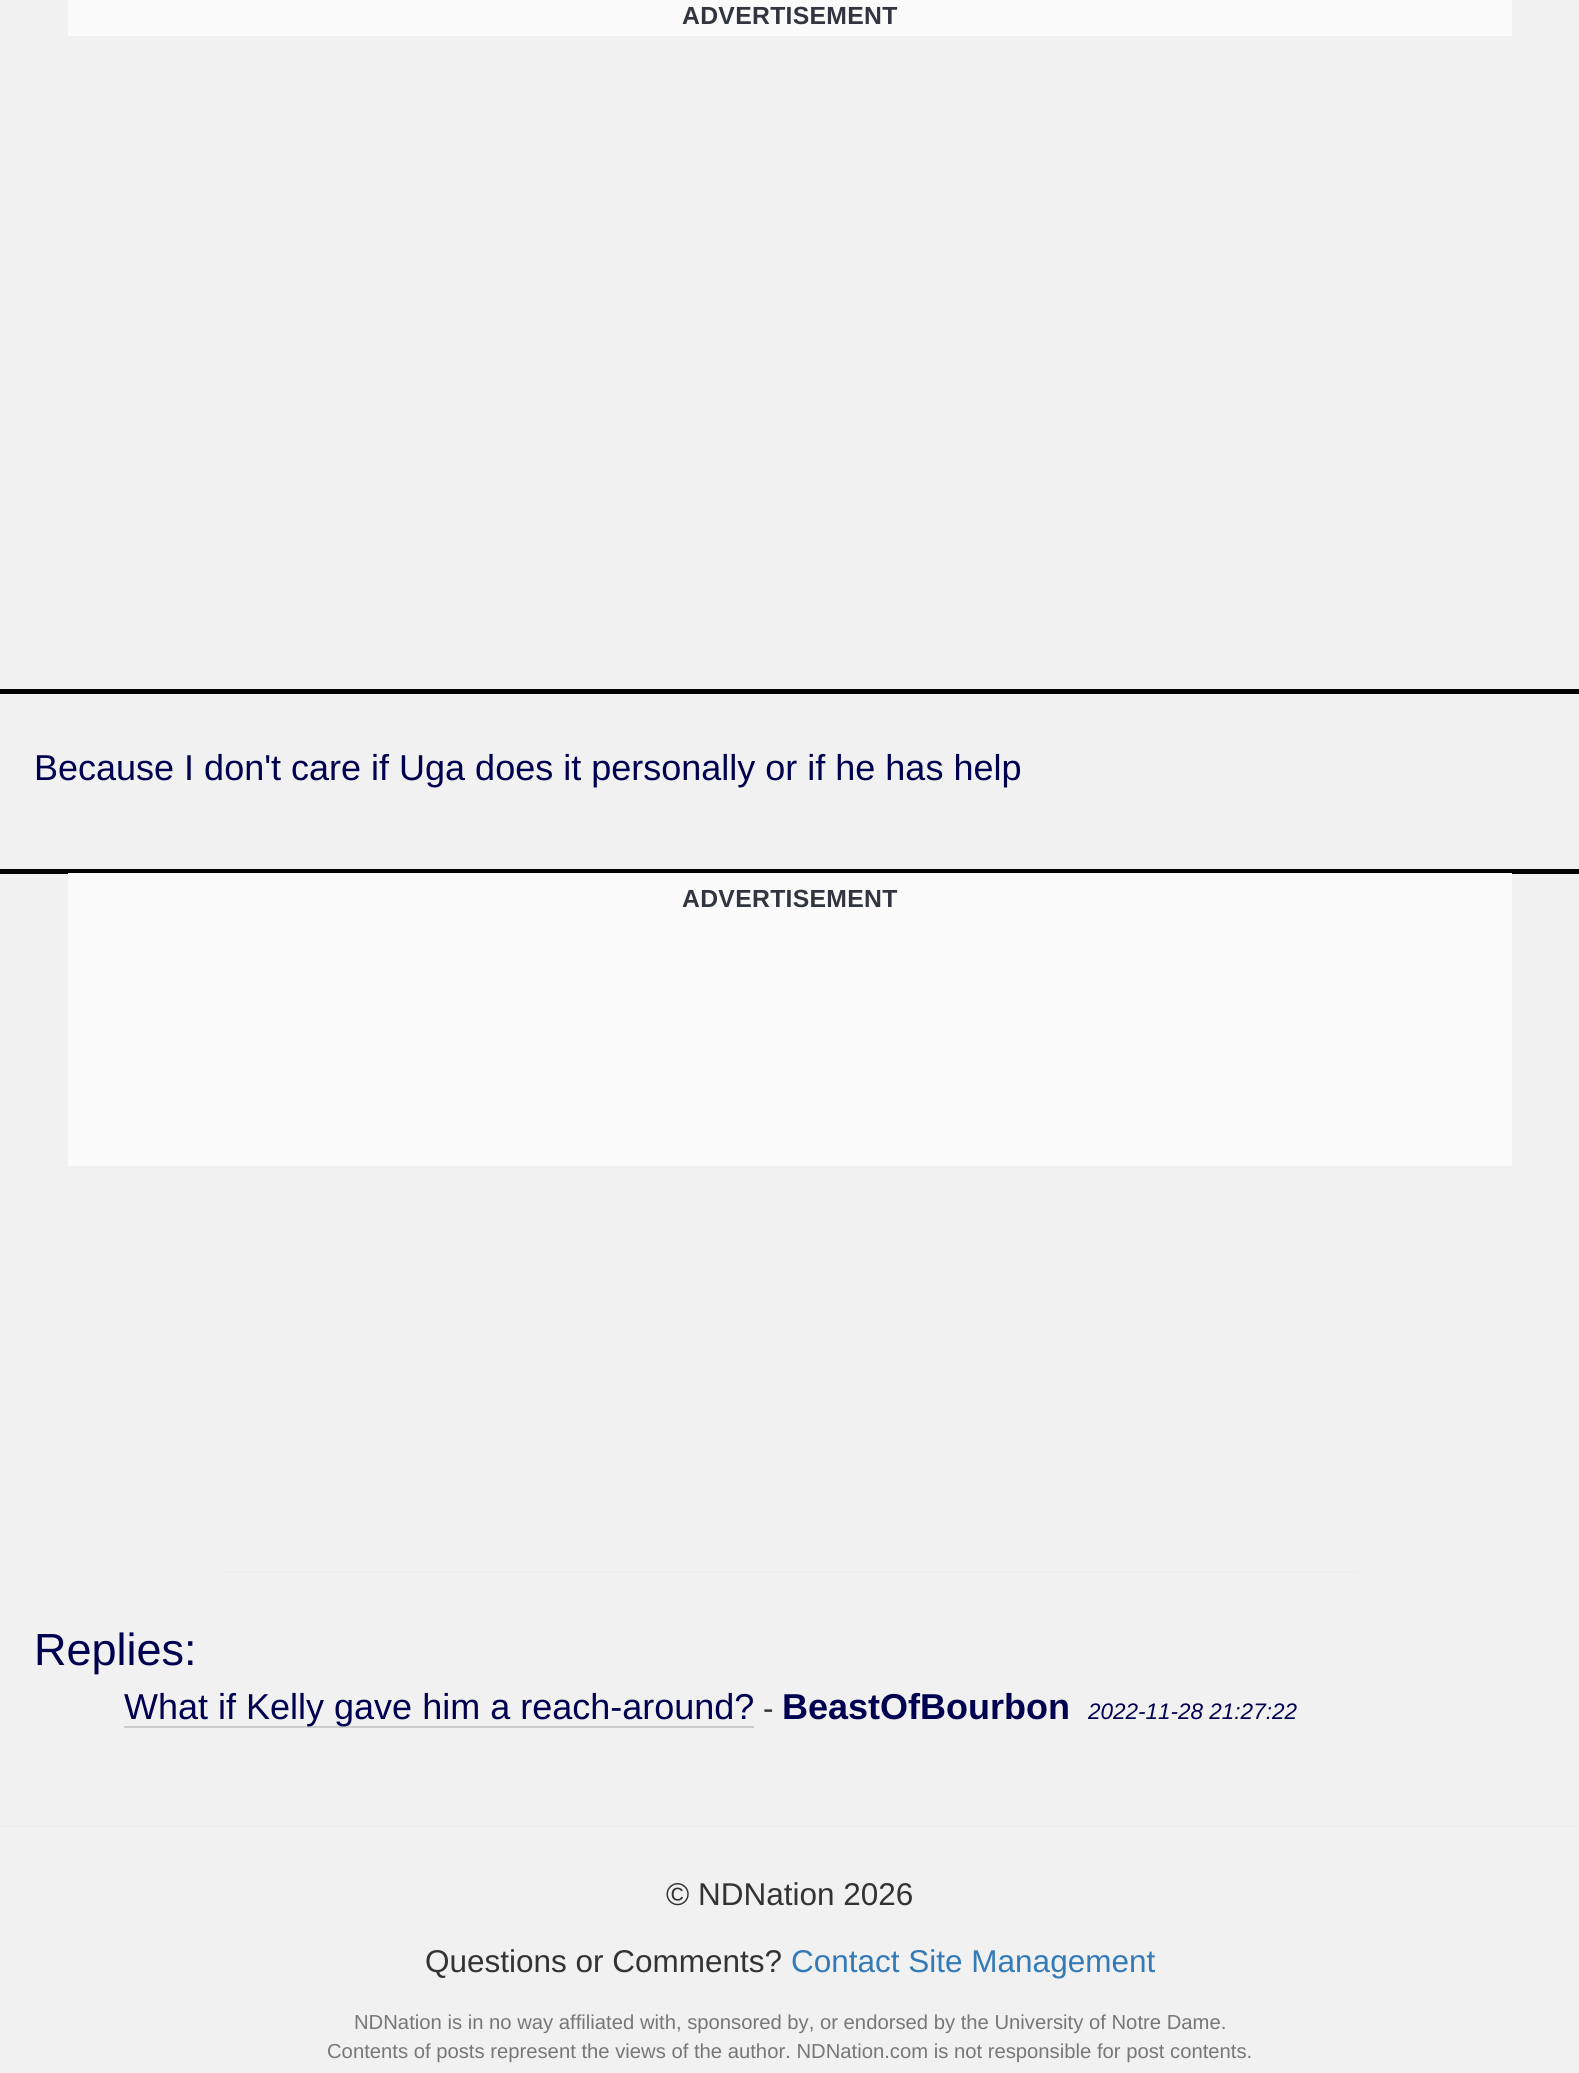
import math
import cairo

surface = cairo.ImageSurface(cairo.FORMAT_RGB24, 1579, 2073)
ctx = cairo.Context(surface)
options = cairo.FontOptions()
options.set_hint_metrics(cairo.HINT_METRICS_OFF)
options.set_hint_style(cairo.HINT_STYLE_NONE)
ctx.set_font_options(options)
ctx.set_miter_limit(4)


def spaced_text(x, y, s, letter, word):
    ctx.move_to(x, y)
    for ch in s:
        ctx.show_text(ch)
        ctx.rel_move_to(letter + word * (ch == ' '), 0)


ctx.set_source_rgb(0.945, 0.945, 0.945)
ctx.paint()
ctx.set_source_rgb(0, 0, 0)
ctx.rectangle(0, 689, 1579, 5)
ctx.fill()
ctx.set_source_rgb(0.984, 0.984, 0.984)
ctx.rectangle(68, 0, 1444, 36)
ctx.fill()
ctx.select_font_face("Liberation Sans", cairo.FONT_SLANT_NORMAL, cairo.FONT_WEIGHT_BOLD)
ctx.set_font_size(24.75)
ctx.set_source_rgb(0.188, 0.208, 0.247)
spaced_text(682, 24, "ADVERTISEMENT", 0.3, 0)
ctx.set_source_rgb(0, 0, 0)
ctx.rectangle(0, 869, 1579, 5)
ctx.fill()
ctx.select_font_face("Liberation Sans")
ctx.set_font_size(36)
ctx.set_source_rgb(0, 0, 0.314)
ctx.move_to(34, 780)
ctx.show_text("Because I don't care if Uga does it personally or if he has help")
ctx.set_source_rgb(0.984, 0.984, 0.984)
ctx.rectangle(68, 873, 1444, 293)
ctx.fill()
ctx.select_font_face("Liberation Sans", cairo.FONT_SLANT_NORMAL, cairo.FONT_WEIGHT_BOLD)
ctx.set_font_size(24.75)
ctx.set_source_rgb(0.188, 0.208, 0.247)
spaced_text(682, 907, "ADVERTISEMENT", 0.3, 0)
ctx.set_source_rgb(0.933, 0.933, 0.933)
ctx.rectangle(223, 1571, 1134, 2)
ctx.fill()
ctx.select_font_face("Liberation Sans")
ctx.set_font_size(45)
ctx.set_source_rgb(0, 0, 0.314)
ctx.move_to(34, 1665)
ctx.show_text("Replies:")
ctx.set_source_rgb(0.8, 0.8, 0.8)
ctx.rectangle(124, 1726, 630, 2)
ctx.fill()
ctx.set_font_size(36)
ctx.set_source_rgb(0, 0, 0.314)
ctx.move_to(124, 1719)
ctx.show_text("What if Kelly gave him a reach-around?")
ctx.set_font_size(31.5)
ctx.set_source_rgb(0.2, 0.2, 0.2)
ctx.move_to(763, 1719)
ctx.show_text("-")
ctx.select_font_face("Liberation Sans", cairo.FONT_SLANT_NORMAL, cairo.FONT_WEIGHT_BOLD)
ctx.set_font_size(36)
ctx.set_source_rgb(0, 0, 0.314)
ctx.move_to(782, 1719)
ctx.show_text("BeastOfBourbon")
ctx.select_font_face("Liberation Sans", cairo.FONT_SLANT_ITALIC)
ctx.set_font_size(22.5)
ctx.move_to(1088, 1719)
ctx.show_text("2022-11-28 21:27:22")
ctx.set_source_rgb(0.933, 0.933, 0.933)
ctx.rectangle(0, 1825, 1579, 2)
ctx.fill()
ctx.select_font_face("Liberation Sans")
ctx.set_font_size(31.5)
ctx.set_source_rgb(0.2, 0.2, 0.2)
ctx.move_to(666, 1905)
ctx.show_text("© NDNation 2026")
ctx.move_to(425, 1972)
ctx.show_text("Questions or Comments?")
ctx.set_source_rgb(0.2, 0.478, 0.718)
ctx.move_to(791, 1972)
ctx.show_text("Contact Site Management")
ctx.set_font_size(20.25)
ctx.set_source_rgb(0.467, 0.467, 0.467)
ctx.move_to(354, 2029)
ctx.show_text("NDNation is in no way affiliated with, sponsored by, or endorsed by the University of Notre Dame.")
ctx.move_to(327, 2058)
ctx.show_text("Contents of posts represent the views of the author. NDNation.com is not responsible for post contents.")
surface.write_to_png("page.png")
